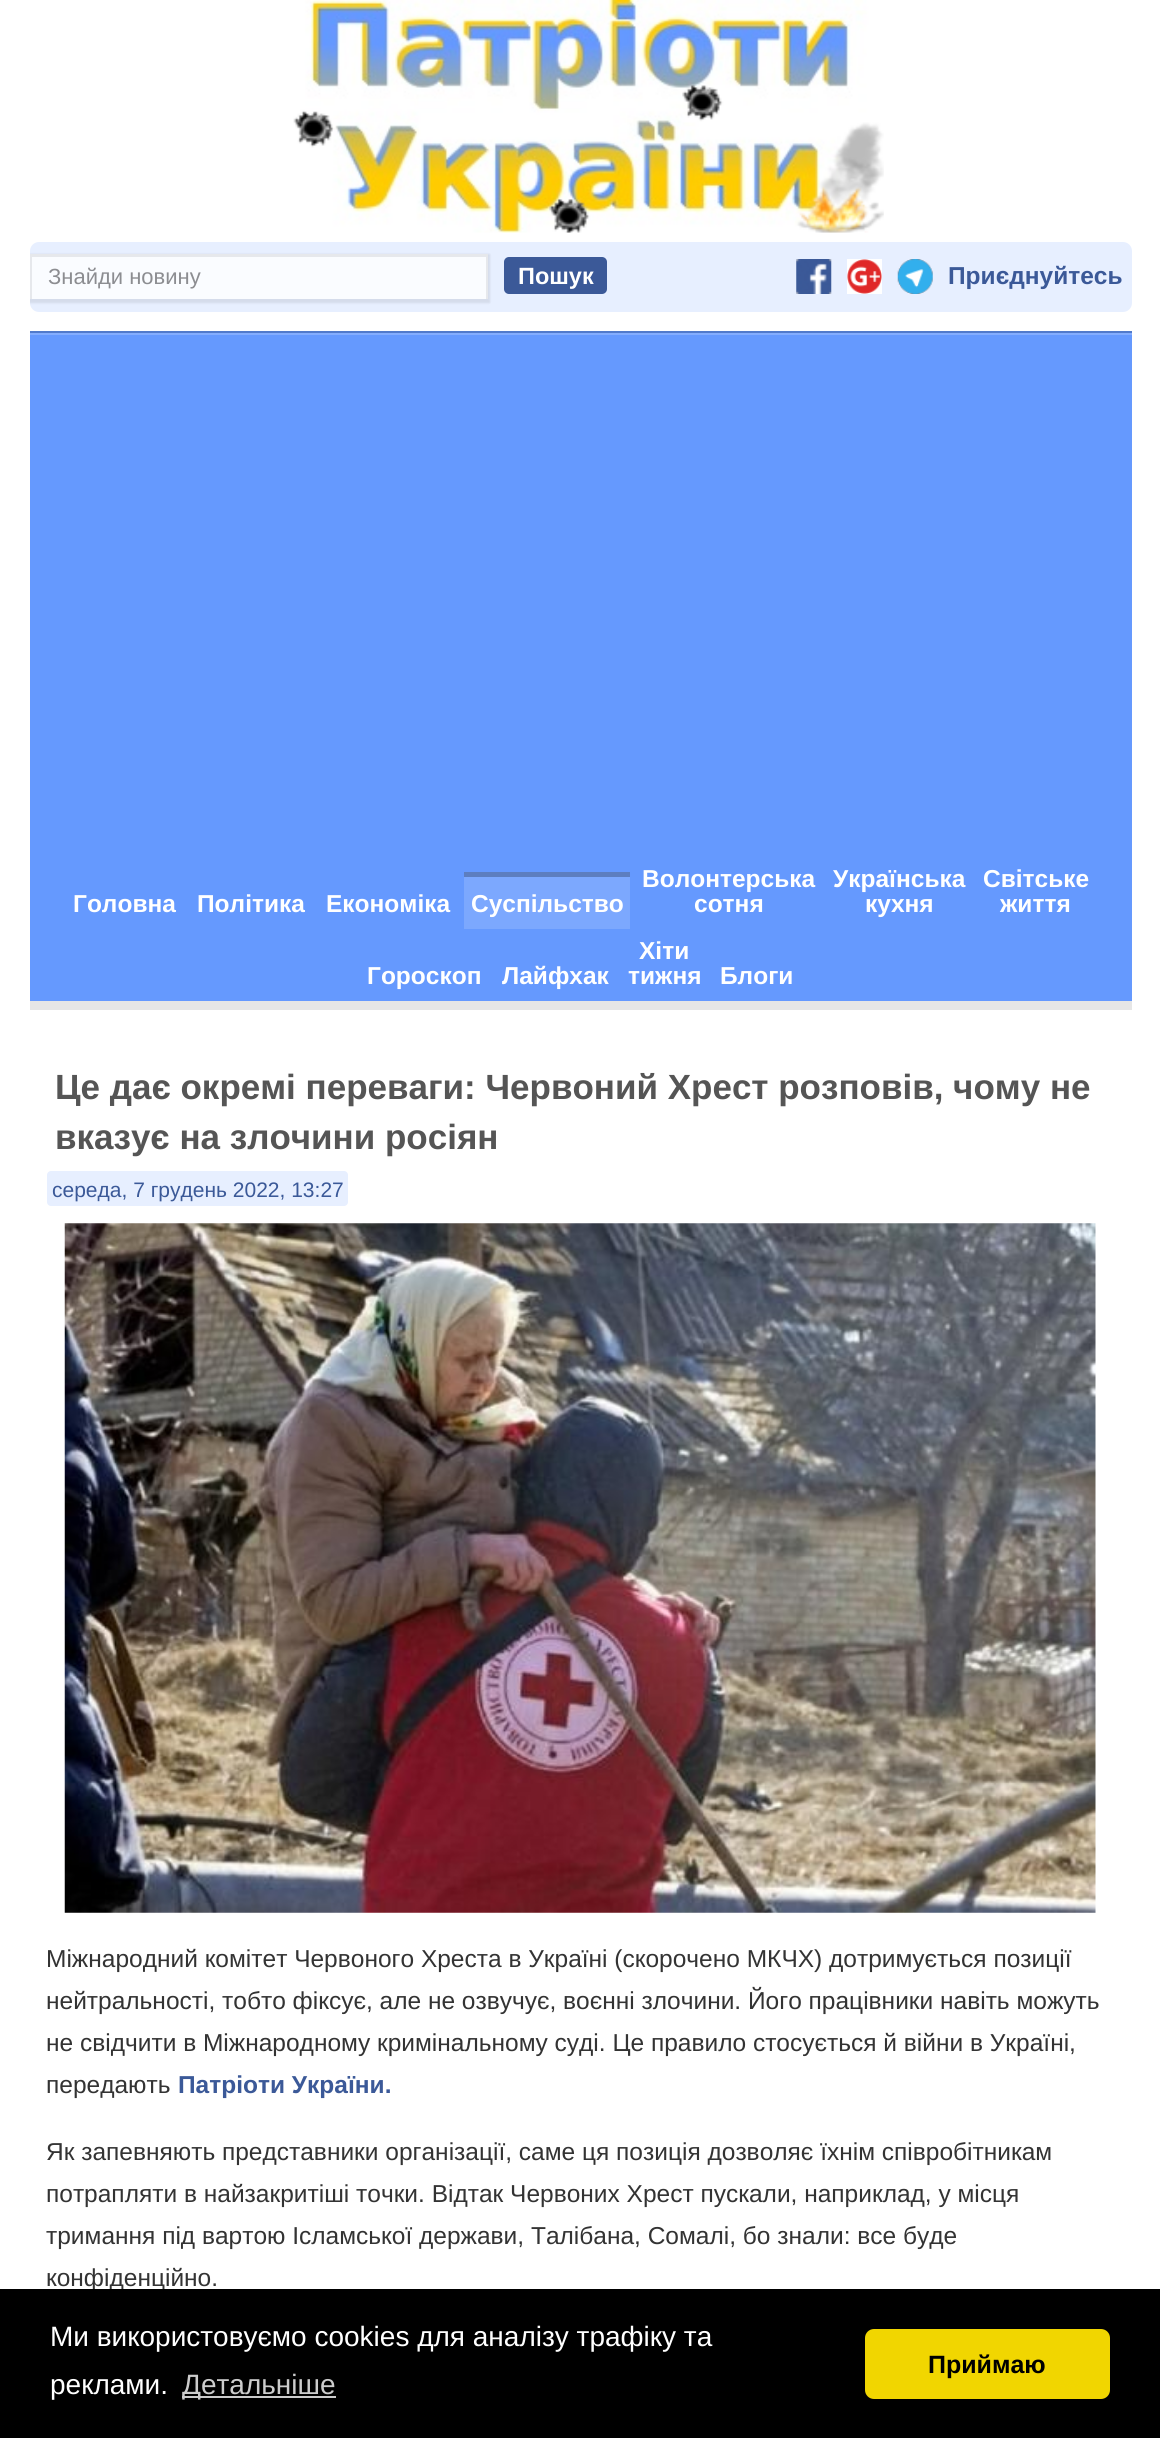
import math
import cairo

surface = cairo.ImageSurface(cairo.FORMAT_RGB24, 1160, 2438)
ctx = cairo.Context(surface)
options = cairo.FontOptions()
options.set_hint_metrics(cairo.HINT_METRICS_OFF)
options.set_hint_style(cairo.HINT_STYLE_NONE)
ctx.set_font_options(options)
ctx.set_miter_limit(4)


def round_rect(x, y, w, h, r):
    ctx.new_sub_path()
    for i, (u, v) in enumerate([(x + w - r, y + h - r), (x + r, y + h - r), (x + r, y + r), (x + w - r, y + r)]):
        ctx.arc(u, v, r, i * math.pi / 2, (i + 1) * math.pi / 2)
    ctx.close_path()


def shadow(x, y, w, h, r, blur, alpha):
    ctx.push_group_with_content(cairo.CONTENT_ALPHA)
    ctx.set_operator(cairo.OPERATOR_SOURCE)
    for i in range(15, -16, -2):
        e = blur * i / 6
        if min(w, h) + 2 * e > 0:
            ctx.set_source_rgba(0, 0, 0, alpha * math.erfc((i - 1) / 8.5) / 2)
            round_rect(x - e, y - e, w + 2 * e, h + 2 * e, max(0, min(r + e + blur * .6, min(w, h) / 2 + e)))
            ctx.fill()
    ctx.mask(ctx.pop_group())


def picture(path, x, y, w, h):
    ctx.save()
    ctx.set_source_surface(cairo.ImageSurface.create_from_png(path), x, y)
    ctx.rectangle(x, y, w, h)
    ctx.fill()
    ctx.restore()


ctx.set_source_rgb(1, 1, 1)
ctx.paint()
picture("img1.png", 293, 0, 591, 233)
ctx.set_source_rgb(0.906, 0.937, 1)
round_rect(30, 242, 1102, 70, 9)
ctx.fill()
ctx.save()
ctx.rectangle(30, 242, 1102, 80)
ctx.clip()
ctx.set_source_rgb(0, 0, 0)
shadow(28, 254, 462, 49, 0, 1, 0.08)
ctx.restore()
ctx.set_source_rgb(0.98, 0.988, 1)
ctx.rectangle(32, 257, 454, 42)
ctx.fill()
ctx.save()
ctx.rectangle(30, 254, 458, 45)
ctx.clip()
ctx.set_source_rgb(0.902, 0.91, 0.922)
ctx.set_fill_rule(cairo.FILL_RULE_EVEN_ODD)
ctx.new_path()
ctx.move_to(-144, 80)
ctx.line_to(662, 80)
ctx.line_to(662, 472)
ctx.line_to(-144, 472)
ctx.close_path()
ctx.move_to(32, 257)
ctx.line_to(486, 257)
ctx.line_to(486, 299)
ctx.line_to(32, 299)
ctx.close_path()
ctx.fill()
ctx.restore()
ctx.select_font_face("Liberation Sans")
ctx.set_font_size(22)
ctx.set_source_rgb(0.549, 0.553, 0.569)
ctx.move_to(48, 284)
ctx.show_text("Знайди новину")
ctx.set_source_rgb(0.231, 0.349, 0.596)
round_rect(504, 257, 103, 37, 5)
ctx.fill()
ctx.select_font_face("Liberation Sans", cairo.FONT_SLANT_NORMAL, cairo.FONT_WEIGHT_BOLD)
ctx.set_font_size(23.5)
ctx.set_source_rgb(1, 1, 1)
ctx.move_to(518, 284)
ctx.show_text("Пошук")
picture("img2.png", 796, 259, 36, 35)
picture("img3.png", 847, 259, 35, 35)
picture("img4.png", 897, 259, 36, 35)
ctx.set_font_size(24.5)
ctx.set_source_rgb(0.231, 0.349, 0.596)
ctx.move_to(948, 284)
ctx.show_text("Приєднуйтесь")
ctx.set_source_rgb(0.902, 0.902, 0.902)
ctx.rectangle(30, 1001, 1102, 9)
ctx.fill()
ctx.set_source_rgb(0.396, 0.6, 0.996)
ctx.rectangle(30, 335, 1102, 666)
ctx.fill()
ctx.set_source_rgb(0.518, 0.678, 0.996)
ctx.rectangle(30, 333, 1102, 2)
ctx.fill()
ctx.set_source_rgb(0.318, 0.478, 0.796)
ctx.rectangle(30, 331, 1102, 2)
ctx.fill()
ctx.set_source_rgb(1, 1, 1)
ctx.move_to(73, 912)
ctx.show_text("Головна")
ctx.move_to(197, 912)
ctx.show_text("Політика")
ctx.move_to(326, 912)
ctx.show_text("Економіка")
ctx.set_source_rgb(0.486, 0.659, 0.996)
ctx.rectangle(464, 877, 166, 52)
ctx.fill()
ctx.set_source_rgb(0.365, 0.494, 0.749)
ctx.rectangle(464, 872, 166, 5)
ctx.fill()
ctx.set_source_rgb(1, 1, 1)
ctx.move_to(471, 912)
ctx.show_text("Суспільство")
ctx.move_to(642, 887)
ctx.show_text("Волонтерська")
ctx.move_to(694, 912)
ctx.show_text("сотня")
ctx.move_to(833, 887)
ctx.show_text("Українська")
ctx.move_to(865, 912)
ctx.show_text("кухня")
ctx.move_to(983, 887)
ctx.show_text("Світське")
ctx.move_to(1000, 912)
ctx.show_text("життя")
ctx.move_to(367, 984)
ctx.show_text("Гороскоп")
ctx.move_to(502, 984)
ctx.show_text("Лайфхак")
ctx.move_to(639, 959)
ctx.show_text("Хіти")
ctx.move_to(628, 984)
ctx.show_text("тижня")
ctx.move_to(720, 984)
ctx.show_text("Блоги")
ctx.set_font_size(35)
ctx.set_source_rgb(0.333, 0.333, 0.333)
ctx.move_to(55, 1099)
ctx.show_text("Це дає окремі переваги: Червоний Хрест розповів, чому не")
ctx.move_to(55, 1149)
ctx.show_text("вказує на злочини росіян")
ctx.set_source_rgb(0.906, 0.937, 1)
round_rect(47, 1171, 301, 35, 4)
ctx.fill()
ctx.select_font_face("Liberation Sans")
ctx.set_font_size(21)
ctx.set_source_rgb(0.231, 0.349, 0.596)
ctx.move_to(52, 1197)
ctx.show_text("середа, 7 грудень 2022, 13:27")
picture("img5.png", 64, 1223, 1032, 690)
ctx.set_font_size(24.5)
ctx.set_source_rgb(0.2, 0.2, 0.2)
ctx.move_to(46, 1967)
ctx.show_text("Міжнародний комітет Червоного Хреста в Україні (скорочено МКЧХ) дотримується позиції")
ctx.move_to(46, 2009)
ctx.show_text("нейтральності, тобто фіксує, але не озвучує, воєнні злочини. Його працівники навіть можуть")
ctx.move_to(46, 2051)
ctx.show_text("не свідчити в Міжнародному кримінальному суді. Це правило стосується й війни в Україні,")
ctx.move_to(46, 2093)
ctx.show_text("передають")
ctx.select_font_face("Liberation Sans", cairo.FONT_SLANT_NORMAL, cairo.FONT_WEIGHT_BOLD)
ctx.set_source_rgb(0.231, 0.349, 0.596)
ctx.move_to(178, 2093)
ctx.show_text("Патріоти України.")
ctx.select_font_face("Liberation Sans")
ctx.set_source_rgb(0.2, 0.2, 0.2)
ctx.move_to(46, 2160)
ctx.show_text("Як запевняють представники організації, саме ця позиція дозволяє їхнім співробітникам")
ctx.move_to(46, 2202)
ctx.show_text("потрапляти в найзакритіші точки. Відтак Червоних Хрест пускали, наприклад, у місця")
ctx.move_to(46, 2244)
ctx.show_text("тримання під вартою Ісламської держави, Талібана, Сомалі, бо знали: все буде")
ctx.move_to(46, 2286)
ctx.show_text("конфіденційно.")
ctx.set_source_rgb(0, 0, 0)
ctx.rectangle(0, 2289, 1160, 149)
ctx.fill()
ctx.set_font_size(28)
ctx.set_source_rgb(1, 1, 1)
ctx.move_to(50, 2346)
ctx.show_text("Ми використовуємо cookies для аналізу трафіку та")
ctx.move_to(50, 2394)
ctx.show_text("реклами.")
ctx.set_source_rgb(0.8, 0.8, 0.8)
ctx.rectangle(182, 2396, 154, 2)
ctx.fill()
ctx.move_to(182, 2394)
ctx.show_text("Детальніше")
ctx.set_source_rgb(0.945, 0.839, 0)
round_rect(865, 2329, 245, 70, 9)
ctx.fill()
ctx.select_font_face("Liberation Sans", cairo.FONT_SLANT_NORMAL, cairo.FONT_WEIGHT_BOLD)
ctx.set_font_size(25)
ctx.set_source_rgb(0, 0, 0)
ctx.move_to(928, 2373)
ctx.show_text("Приймаю")
surface.write_to_png("page.png")
